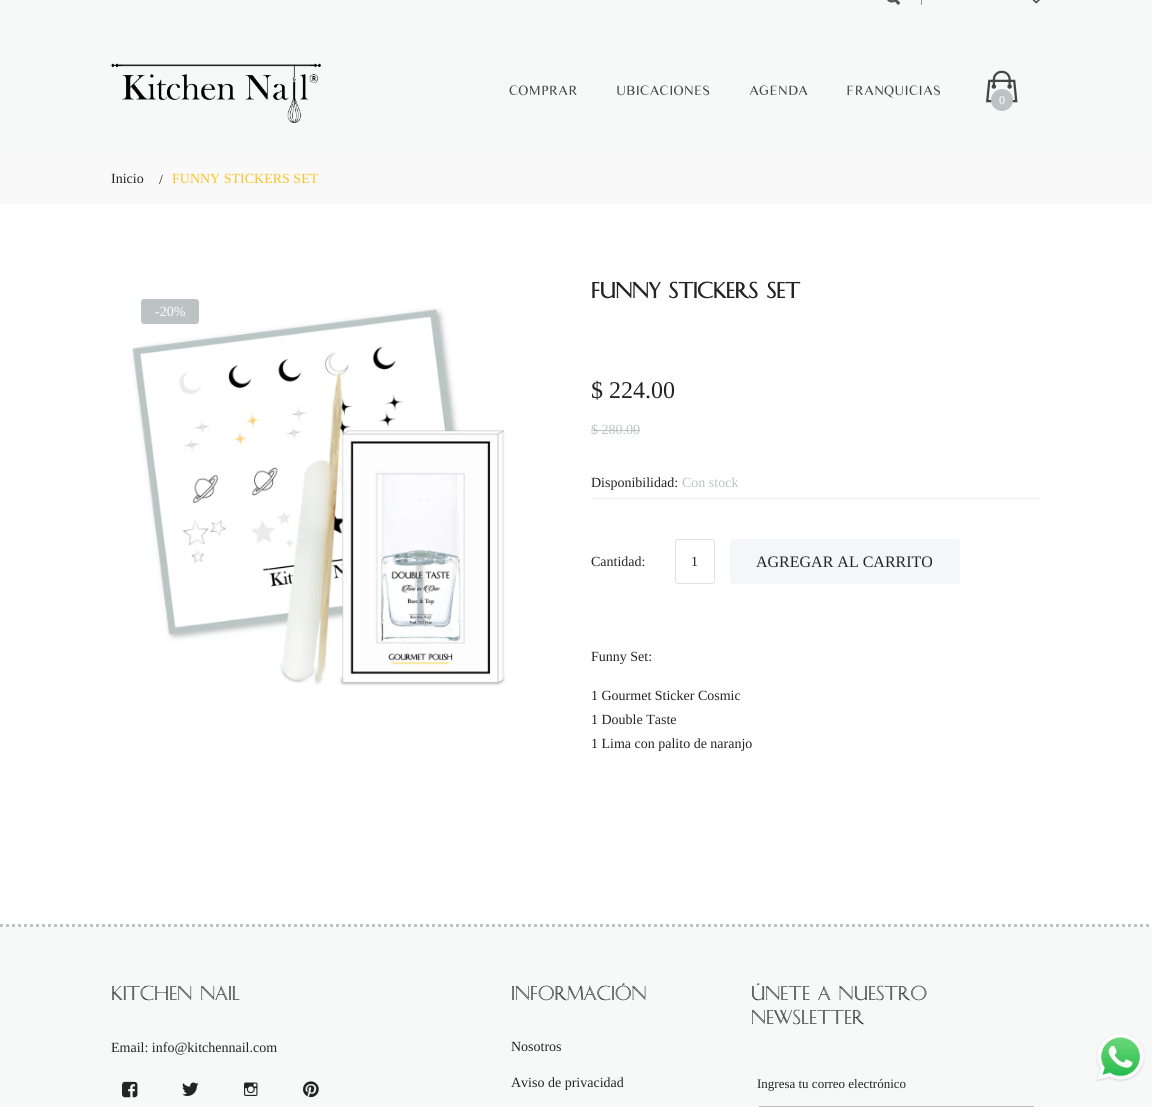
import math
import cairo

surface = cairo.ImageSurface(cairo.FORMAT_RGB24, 1152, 1107)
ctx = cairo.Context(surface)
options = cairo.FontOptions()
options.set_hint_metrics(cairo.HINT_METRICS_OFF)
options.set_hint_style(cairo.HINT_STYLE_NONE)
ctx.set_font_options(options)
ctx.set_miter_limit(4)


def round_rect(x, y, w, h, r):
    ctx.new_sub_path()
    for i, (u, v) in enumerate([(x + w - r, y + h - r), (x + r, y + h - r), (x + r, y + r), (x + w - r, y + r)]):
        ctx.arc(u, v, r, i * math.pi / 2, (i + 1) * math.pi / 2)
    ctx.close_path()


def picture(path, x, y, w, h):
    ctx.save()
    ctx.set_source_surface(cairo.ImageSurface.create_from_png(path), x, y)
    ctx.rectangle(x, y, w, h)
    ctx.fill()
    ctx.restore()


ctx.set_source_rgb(1, 1, 1)
ctx.paint()
ctx.set_source_rgb(0.965, 0.969, 0.969)
ctx.rectangle(0, 0, 1152, 153)
ctx.fill()
picture("img1.png", 887, 0, 14, 5)
ctx.set_source_rgb(0.6, 0.6, 0.6)
ctx.rectangle(921, 0, 1, 5)
ctx.fill()
picture("img2.png", 1032, 0, 8, 4)
picture("img3.png", 111, 63, 210, 60)
ctx.select_font_face("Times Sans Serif")
ctx.set_font_size(14)
ctx.set_source_rgb(0.271, 0.271, 0.271)
ctx.move_to(509, 95)
ctx.show_text("COMPRAR")
ctx.move_to(616, 95)
ctx.show_text("UBICACIONES")
ctx.move_to(749, 95)
ctx.show_text("AGENDA")
ctx.move_to(846, 95)
ctx.show_text("FRANQUICIAS")
picture("img4.png", 986, 70, 32, 33)
ctx.set_source_rgb(0.737, 0.769, 0.765)
ctx.arc(1002, 100, 11, 0, 2 * math.pi)
ctx.fill()
ctx.select_font_face("Liberation Serif")
ctx.set_font_size(12)
ctx.set_source_rgb(1, 1, 1)
ctx.move_to(999, 104)
ctx.show_text("0")
ctx.set_source_rgb(0.973, 0.976, 0.976)
ctx.rectangle(0, 153, 1152, 51)
ctx.fill()
ctx.set_font_size(14)
ctx.set_source_rgb(0.141, 0.141, 0.141)
ctx.move_to(111, 183)
ctx.show_text("Inicio")
ctx.move_to(159, 184)
ctx.show_text("/")
ctx.set_source_rgb(0.988, 0.765, 0.149)
ctx.move_to(172, 183)
ctx.show_text("FUNNY STICKERS SET")
ctx.new_path()
ctx.move_to(0, 925.5)
ctx.line_to(1152, 925.5)
ctx.set_source_rgb(0.737, 0.769, 0.765)
ctx.set_line_width(3)
ctx.set_dash([3, 3])
ctx.stroke()
picture("img5.png", 131, 307, 375, 379)
round_rect(141, 299, 58, 25, 3)
ctx.fill()
ctx.set_source_rgb(1, 1, 1)
ctx.move_to(155, 316)
ctx.show_text("-20%")
ctx.select_font_face("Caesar", cairo.FONT_SLANT_NORMAL, cairo.FONT_WEIGHT_BOLD)
ctx.set_font_size(22)
ctx.set_source_rgb(0.141, 0.141, 0.141)
ctx.move_to(591, 298)
ctx.show_text("FUNNY STICKERS SET")
ctx.select_font_face("Liberation Serif")
ctx.set_font_size(24)
ctx.move_to(591, 398)
ctx.show_text("$ 224.00")
ctx.set_font_size(14)
ctx.set_source_rgb(0.737, 0.769, 0.765)
ctx.move_to(591, 434)
ctx.show_text("$ 280.00")
ctx.rectangle(591, 430, 49, 1)
ctx.fill()
ctx.set_source_rgb(0.141, 0.141, 0.141)
ctx.move_to(591, 487)
ctx.show_text("Disponibilidad:")
ctx.set_source_rgb(0.737, 0.769, 0.765)
ctx.move_to(682, 487)
ctx.show_text("Con stock")
ctx.set_source_rgb(0.922, 0.922, 0.922)
ctx.rectangle(591, 498, 450, 1)
ctx.fill()
ctx.set_source_rgb(0.141, 0.141, 0.141)
ctx.move_to(591, 566)
ctx.show_text("Cantidad:")
round_rect(675.5, 539.5, 39, 44, 2.5)
ctx.set_source_rgb(0.882, 0.882, 0.882)
ctx.set_line_width(1)
ctx.set_dash([])
ctx.stroke()
ctx.set_source_rgb(0.141, 0.141, 0.141)
ctx.move_to(691, 566)
ctx.show_text("1")
ctx.set_source_rgb(0.957, 0.961, 0.969)
round_rect(730, 539, 230, 45, 3)
ctx.fill()
ctx.set_font_size(16)
ctx.set_source_rgb(0.141, 0.141, 0.141)
ctx.move_to(756, 567)
ctx.show_text("AGREGAR AL CARRITO")
ctx.set_font_size(14)
ctx.move_to(591, 661)
ctx.show_text("Funny Set:")
ctx.move_to(591, 700)
ctx.show_text("1 Gourmet Sticker Cosmic")
ctx.move_to(591, 724)
ctx.show_text("1 Double Taste")
ctx.move_to(591, 748)
ctx.show_text("1 Lima con palito de naranjo")
ctx.set_source_rgb(0.965, 0.969, 0.969)
ctx.rectangle(0, 927, 1152, 180)
ctx.fill()
ctx.select_font_face("Caesar Thin")
ctx.set_font_size(20)
ctx.set_source_rgb(0.141, 0.141, 0.141)
ctx.move_to(111, 1000)
ctx.show_text("Kitchen Nail")
ctx.select_font_face("Liberation Serif")
ctx.set_font_size(14)
ctx.move_to(111, 1052)
ctx.show_text("Email: info@kitchennail.com")
picture("img6.png", 122, 1081, 16, 17)
picture("img7.png", 182, 1082, 17, 14)
picture("img8.png", 244, 1082, 14, 14)
picture("img9.png", 303, 1081, 16, 17)
ctx.select_font_face("Caesar Thin")
ctx.set_font_size(20)
ctx.move_to(511, 1000)
ctx.show_text("Información")
ctx.select_font_face("Liberation Serif")
ctx.set_font_size(14)
ctx.move_to(511, 1051)
ctx.show_text("Nosotros")
ctx.move_to(511, 1087)
ctx.show_text("Aviso de privacidad")
ctx.select_font_face("Caesar Thin")
ctx.set_font_size(20)
ctx.move_to(751, 1000)
ctx.show_text("Únete a nuestro")
ctx.move_to(751, 1024)
ctx.show_text("Newsletter")
ctx.set_source_rgb(0.733, 0.733, 0.733)
ctx.rectangle(759, 1106, 275, 1)
ctx.fill()
ctx.select_font_face("Liberation Serif")
ctx.set_font_size(13)
ctx.set_source_rgb(0.141, 0.141, 0.141)
ctx.move_to(757, 1088)
ctx.show_text("Ingresa tu correo electrónico")
picture("img10.png", 1096, 1033, 49, 49)
surface.write_to_png("page.png")
